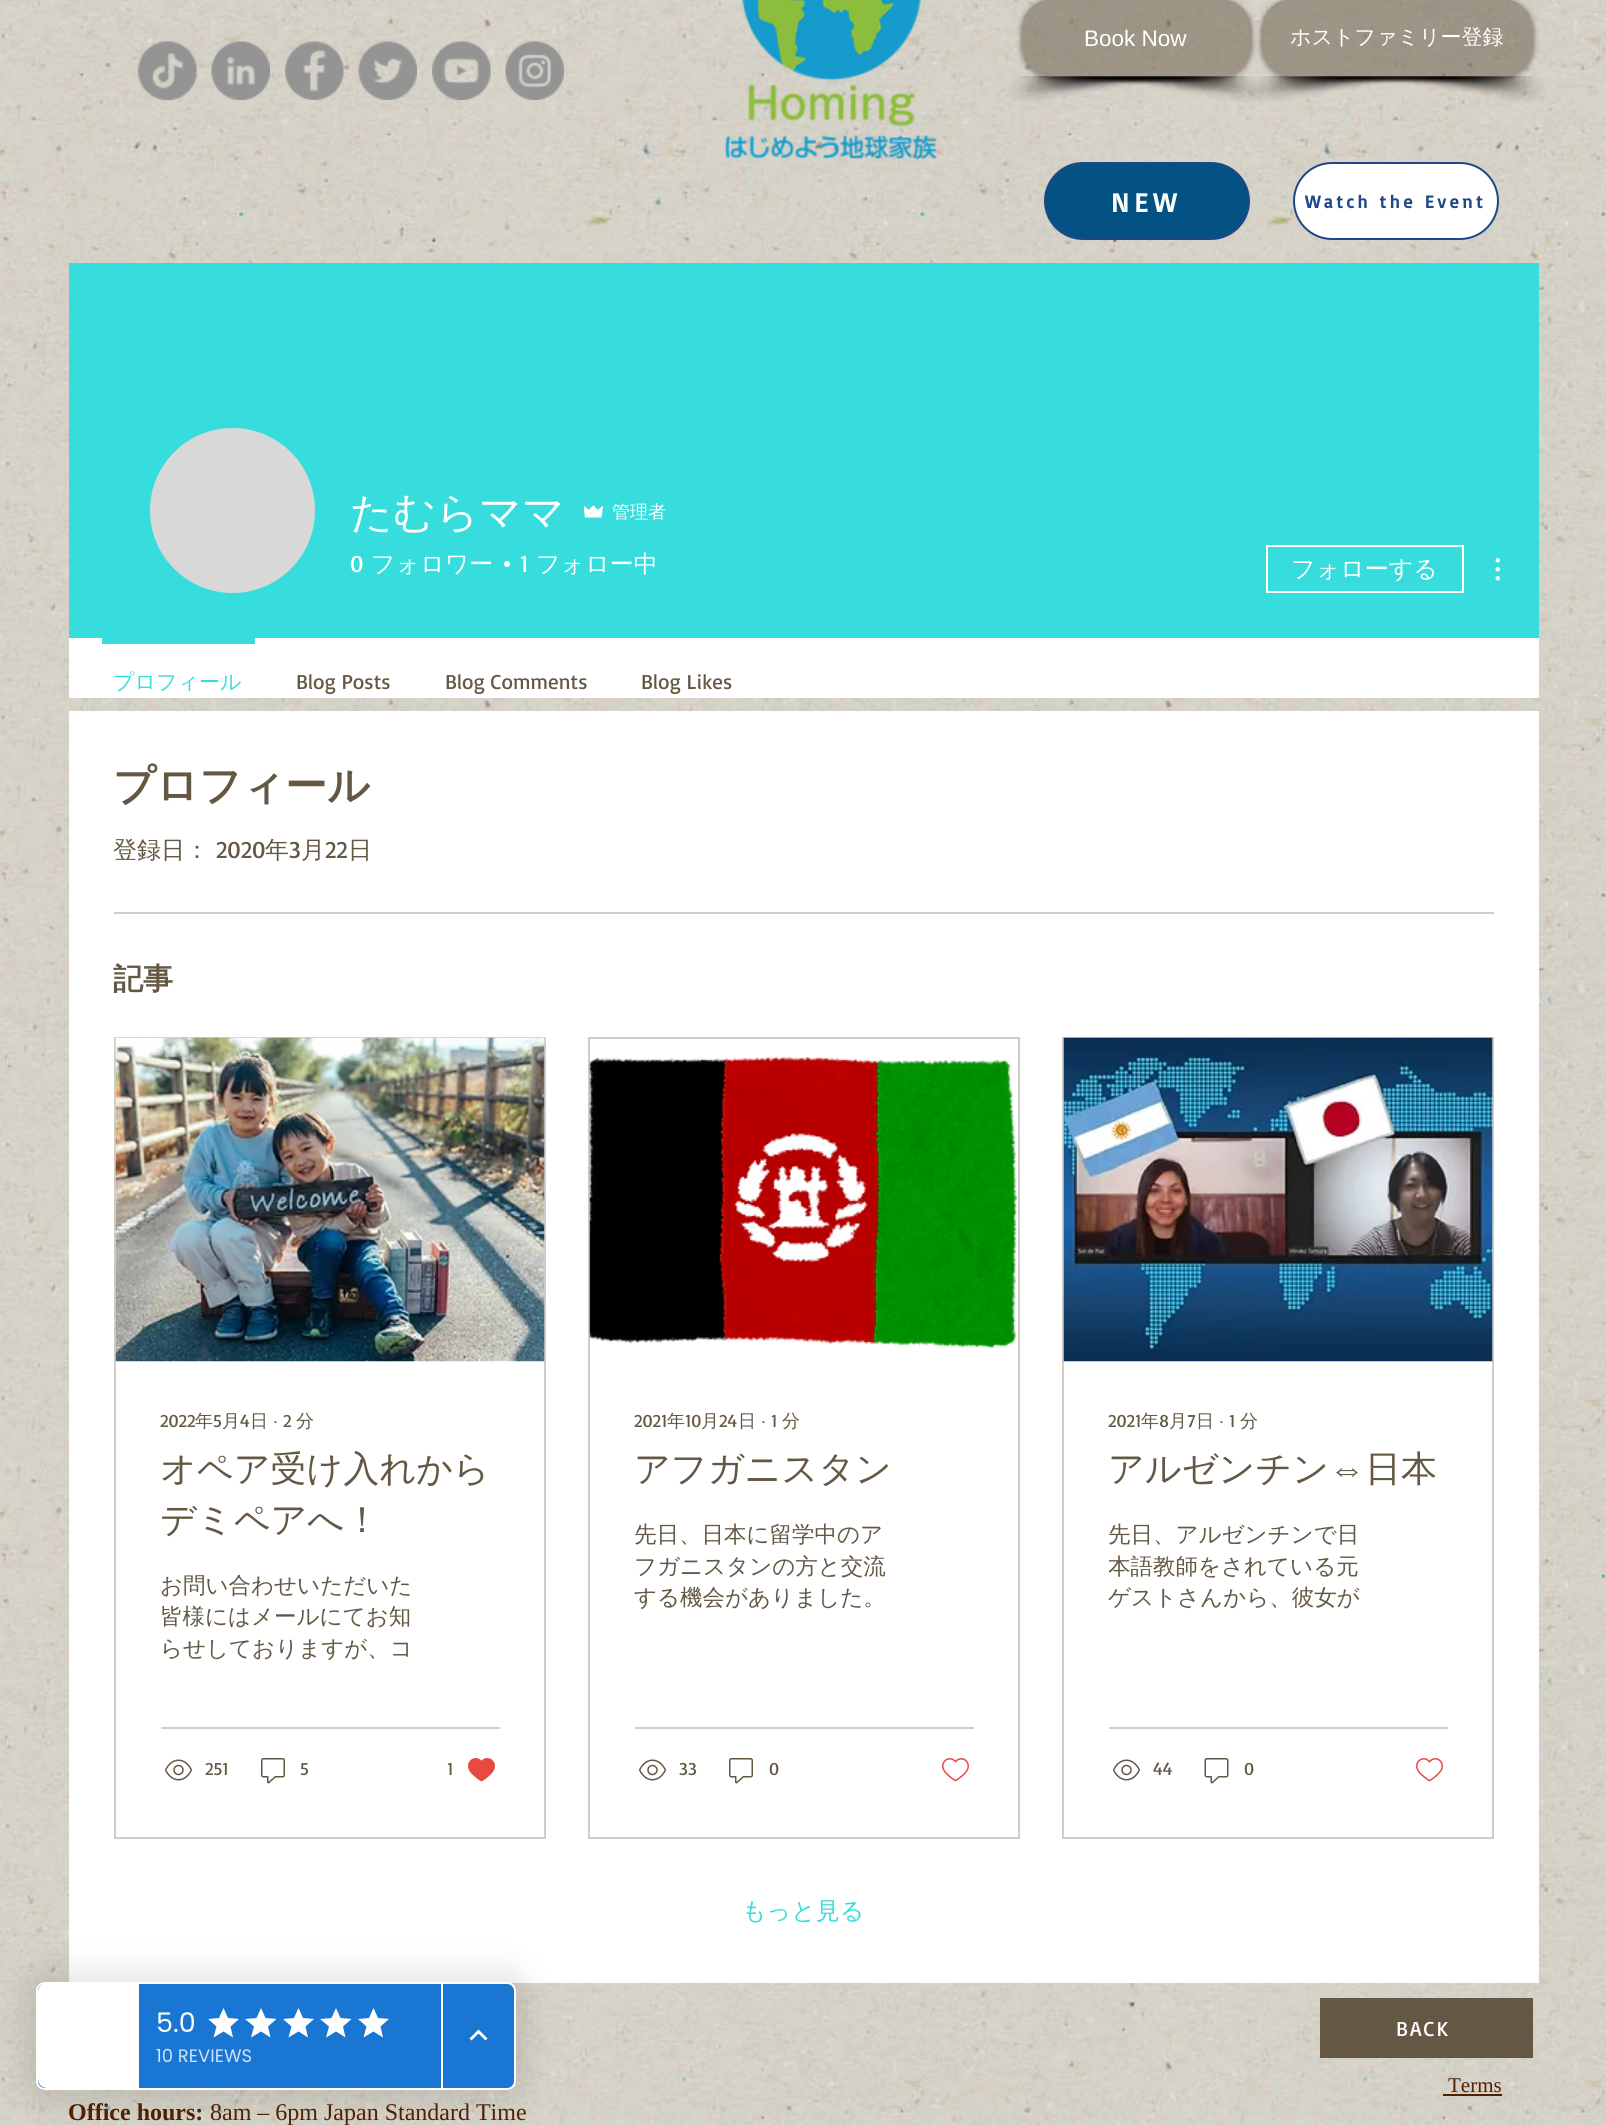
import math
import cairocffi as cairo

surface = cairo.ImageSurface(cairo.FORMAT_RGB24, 1606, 2125)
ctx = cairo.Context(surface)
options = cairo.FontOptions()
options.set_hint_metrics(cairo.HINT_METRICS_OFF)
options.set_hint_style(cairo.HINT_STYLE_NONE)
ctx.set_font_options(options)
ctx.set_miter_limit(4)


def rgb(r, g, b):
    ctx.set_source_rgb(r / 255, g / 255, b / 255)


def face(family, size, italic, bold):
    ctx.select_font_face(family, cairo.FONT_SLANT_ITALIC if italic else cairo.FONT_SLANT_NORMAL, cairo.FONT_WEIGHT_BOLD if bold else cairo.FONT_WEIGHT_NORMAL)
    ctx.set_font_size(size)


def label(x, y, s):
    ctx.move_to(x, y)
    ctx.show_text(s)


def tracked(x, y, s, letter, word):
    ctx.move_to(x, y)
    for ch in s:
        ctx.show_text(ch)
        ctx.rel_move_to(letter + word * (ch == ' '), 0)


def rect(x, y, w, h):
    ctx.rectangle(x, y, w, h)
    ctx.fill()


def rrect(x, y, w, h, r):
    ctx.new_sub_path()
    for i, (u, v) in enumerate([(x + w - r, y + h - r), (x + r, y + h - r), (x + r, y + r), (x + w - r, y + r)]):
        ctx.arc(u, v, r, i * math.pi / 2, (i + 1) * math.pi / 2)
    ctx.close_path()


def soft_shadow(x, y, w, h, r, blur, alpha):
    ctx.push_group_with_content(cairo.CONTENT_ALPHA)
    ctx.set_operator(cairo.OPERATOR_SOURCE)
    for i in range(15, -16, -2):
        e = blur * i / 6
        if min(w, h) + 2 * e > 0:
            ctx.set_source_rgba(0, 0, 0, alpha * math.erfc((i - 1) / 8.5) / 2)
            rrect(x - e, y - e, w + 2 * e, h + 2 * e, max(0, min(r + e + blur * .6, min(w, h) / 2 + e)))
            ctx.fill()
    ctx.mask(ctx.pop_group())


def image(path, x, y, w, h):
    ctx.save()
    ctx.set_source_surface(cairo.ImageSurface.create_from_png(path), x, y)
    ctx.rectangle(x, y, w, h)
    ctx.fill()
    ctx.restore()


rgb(255, 255, 255)
ctx.paint()
image('image0.png', 0, 0, 1606, 2125)
image('image1.png', 724, 0, 213, 159)
image('image2.png', 1009, 76, 230, 26)
image('image3.png', 1034, 76, 230, 26)
ctx.save()
ctx.set_fill_rule(cairo.FILL_RULE_EVEN_ODD)
ctx.new_path()
ctx.move_to(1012, 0)
ctx.line_to(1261, 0)
ctx.line_to(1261, 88)
ctx.line_to(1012, 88)
ctx.close_path()
ctx.move_to(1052, -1)
ctx.line_to(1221, -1)
ctx.curve_to(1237.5, -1, 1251, 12.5, 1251, 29)
ctx.line_to(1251, 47)
ctx.curve_to(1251, 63.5, 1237.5, 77, 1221, 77)
ctx.line_to(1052, 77)
ctx.curve_to(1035.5, 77, 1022, 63.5, 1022, 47)
ctx.line_to(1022, 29)
ctx.curve_to(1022, 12.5, 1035.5, -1, 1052, -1)
ctx.close_path()
ctx.clip()
rgb(0, 0, 0)
soft_shadow(1022, 0, 229, 78, 30, 3, 0.6)
ctx.restore()
ctx.set_source_rgba(0.392, 0.345, 0.267, 0.5)
rrect(1022, -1, 229, 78, 30)
ctx.fill()
face('Liberation Sans', 22.5, 0, 0)
rgb(255, 255, 255)
label(1084, 46, 'Book Now')
image('image4.png', 1249, 76, 230, 26)
image('image5.png', 1358, 76, 188, 26)
ctx.save()
ctx.set_fill_rule(cairo.FILL_RULE_EVEN_ODD)
ctx.new_path()
ctx.move_to(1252, 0)
ctx.line_to(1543, 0)
ctx.line_to(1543, 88)
ctx.line_to(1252, 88)
ctx.close_path()
ctx.move_to(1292, -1)
ctx.line_to(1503, -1)
ctx.curve_to(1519.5, -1, 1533, 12.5, 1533, 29)
ctx.line_to(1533, 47)
ctx.curve_to(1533, 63.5, 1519.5, 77, 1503, 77)
ctx.line_to(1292, 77)
ctx.curve_to(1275.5, 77, 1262, 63.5, 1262, 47)
ctx.line_to(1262, 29)
ctx.curve_to(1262, 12.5, 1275.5, -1, 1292, -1)
ctx.close_path()
ctx.clip()
rgb(0, 0, 0)
soft_shadow(1262, 0, 271, 78, 30, 3, 0.6)
ctx.restore()
ctx.set_source_rgba(0.392, 0.345, 0.267, 0.5)
rrect(1262, -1, 271, 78, 30)
ctx.fill()
face('WenQuanYi Zen Hei Medium', 21, 0, 0)
rgb(255, 255, 255)
label(1290, 44, 'ホストファミリー登録')
image('image6.png', 138, 41, 59, 59)
image('image7.png', 211, 41, 59, 59)
image('image8.png', 285, 41, 59, 59)
image('image9.png', 358, 41, 59, 59)
image('image10.png', 432, 41, 59, 59)
image('image11.png', 505, 41, 59, 59)
rgb(4, 81, 132)
rrect(1045, 163, 204, 76, 38)
ctx.fill_preserve()
rgb(30, 71, 135)
ctx.stroke()
face('Basic', 27, 0, 1)
rgb(255, 255, 255)
tracked(1111, 212, 'NEW', 5.5, 0)
rrect(1294, 163, 204, 76, 38)
ctx.fill_preserve()
rgb(30, 71, 135)
ctx.stroke()
ctx.save()
ctx.rectangle(1305, 191, 180, 22)
ctx.clip()
face('Basic', 18, 0, 1)
tracked(1305, 208, 'Watch the Event', 3.6, 0)
ctx.restore()
rgb(55, 221, 221)
rect(69, 263, 1470, 375)
rgb(216, 216, 216)
ctx.new_path()
ctx.arc(232.5, 510.5, 82.5, 0, 2 * math.pi)
ctx.fill()
face('WenQuanYi Zen Hei Medium', 42, 0, 0)
rgb(255, 255, 255)
label(350, 527, 'たむらママ')
image('image12.png', 584, 505, 19, 13)
face('WenQuanYi Zen Hei Medium', 18, 0, 0)
label(612, 518, '管理者')
face('Basic', 24, 0, 0)
label(350, 572, '0')
face('WenQuanYi Zen Hei Medium', 24, 0, 0)
label(371, 572, 'フォロワー')
ctx.new_path()
ctx.arc(507, 564, 3, 0, 2 * math.pi)
ctx.fill()
face('Basic', 24, 0, 0)
label(520, 572, '1')
face('WenQuanYi Zen Hei Medium', 24, 0, 0)
label(536, 572, 'フォロー中')
ctx.rectangle(1267, 546, 196, 46)
ctx.stroke()
label(1291, 577, 'フォローする')
image('image13.png', 1495, 558, 5, 23)
rect(69, 638, 1470, 60)
rgb(55, 221, 221)
rect(102, 638, 153, 6)
face('WenQuanYi Zen Hei Medium', 21, 0, 0)
label(113, 689, 'プロフィール')
face('Basic', 21, 0, 0)
rgb(100, 88, 68)
label(296, 689, 'Blog Posts')
label(445, 689, 'Blog Comments')
label(641, 689, 'Blog Likes')
rgb(255, 255, 255)
rect(69, 711, 1470, 1272)
face('WenQuanYi Zen Hei', 42, 0, 1)
rgb(100, 88, 68)
label(113, 800, 'プロフィール')
face('WenQuanYi Zen Hei Medium', 24, 0, 0)
label(113, 858, '登録日：')
face('Basic', 24, 0, 0)
label(216, 858, '2020')
face('WenQuanYi Zen Hei Medium', 24, 0, 0)
label(265, 858, '年')
face('Basic', 24, 0, 0)
label(289, 858, '3')
face('WenQuanYi Zen Hei Medium', 24, 0, 0)
label(301, 858, '月')
face('Basic', 24, 0, 0)
label(325, 858, '22')
face('WenQuanYi Zen Hei Medium', 24, 0, 0)
label(348, 858, '日')
rgb(209, 205, 199)
rect(114, 912, 1380, 2)
face('WenQuanYi Zen Hei', 30, 0, 1)
rgb(100, 88, 68)
label(113, 989, '記事')
ctx.rectangle(115, 1038, 430, 800)
rgb(209, 205, 199)
ctx.stroke()
image('image14.png', 115, 1037, 430, 325)
face('Basic', 18, 0, 0)
rgb(100, 88, 68)
label(160, 1427, '2022')
face('WenQuanYi Zen Hei Medium', 18, 0, 0)
label(195, 1427, '年')
face('Basic', 18, 0, 0)
label(213, 1427, '5')
face('WenQuanYi Zen Hei Medium', 18, 0, 0)
label(222, 1427, '月')
face('Basic', 18, 0, 0)
label(240, 1427, '4')
face('WenQuanYi Zen Hei Medium', 18, 0, 0)
label(250, 1427, '日')
face('Liberation Sans', 18, 0, 0)
label(273, 1427, '∙')
face('Basic', 18, 0, 0)
label(283, 1427, '2')
face('WenQuanYi Zen Hei Medium', 18, 0, 0)
label(296, 1427, '分')
face('WenQuanYi Zen Hei Medium', 36, 0, 0)
label(160, 1481, 'オペア受け入れから')
label(160, 1532, 'デミペアへ！')
face('WenQuanYi Zen Hei Medium', 22.5, 0, 0)
label(160, 1593, 'お問い合わせいただいた')
label(160, 1624, '皆様にはメールにてお知')
label(160, 1656, 'らせしておりますが、コ')
rgb(209, 205, 199)
rect(161, 1727, 339, 2)
image('image15.png', 165, 1759, 27, 22)
face('Basic', 18, 0, 0)
rgb(100, 88, 68)
label(205, 1775, '251')
image('image16.png', 261, 1758, 24, 26)
label(300, 1775, '5')
label(447, 1775, '1')
image('image17.png', 468, 1758, 27, 24)
ctx.rectangle(589, 1038, 430, 800)
rgb(209, 205, 199)
ctx.stroke()
image('image18.png', 589, 1056, 429, 293)
rgb(100, 88, 68)
label(634, 1427, '2021')
face('WenQuanYi Zen Hei Medium', 18, 0, 0)
label(667, 1427, '年')
face('Basic', 18, 0, 0)
label(685, 1427, '10')
face('WenQuanYi Zen Hei Medium', 18, 0, 0)
label(701, 1427, '月')
face('Basic', 18, 0, 0)
label(719, 1427, '24')
face('WenQuanYi Zen Hei Medium', 18, 0, 0)
label(738, 1427, '日')
face('Liberation Sans', 18, 0, 0)
label(761, 1427, '∙')
face('Basic', 18, 0, 0)
label(771, 1427, '1')
face('WenQuanYi Zen Hei Medium', 18, 0, 0)
label(782, 1427, '分')
face('WenQuanYi Zen Hei Medium', 36, 0, 0)
label(634, 1481, 'アフガニスタン')
face('WenQuanYi Zen Hei Medium', 22.5, 0, 0)
label(634, 1542, '先日、日本に留学中のア')
label(634, 1574, 'フガニスタンの方と交流')
label(634, 1605, 'する機会がありました。')
rgb(209, 205, 199)
rect(635, 1727, 339, 2)
image('image15.png', 639, 1759, 27, 22)
face('Basic', 18, 0, 0)
rgb(100, 88, 68)
label(679, 1775, '33')
image('image16.png', 729, 1758, 24, 26)
label(769, 1775, '0')
image('image19.png', 942, 1758, 27, 24)
ctx.rectangle(1063, 1038, 430, 800)
rgb(209, 205, 199)
ctx.stroke()
image('image20.png', 1063, 1037, 430, 325)
rgb(100, 88, 68)
label(1108, 1427, '2021')
face('WenQuanYi Zen Hei Medium', 18, 0, 0)
label(1141, 1427, '年')
face('Basic', 18, 0, 0)
label(1159, 1427, '8')
face('WenQuanYi Zen Hei Medium', 18, 0, 0)
label(1169, 1427, '月')
face('Basic', 18, 0, 0)
label(1187, 1427, '7')
face('WenQuanYi Zen Hei Medium', 18, 0, 0)
label(1196, 1427, '日')
face('Liberation Sans', 18, 0, 0)
label(1219, 1427, '∙')
face('Basic', 18, 0, 0)
label(1229, 1427, '1')
face('WenQuanYi Zen Hei Medium', 18, 0, 0)
label(1240, 1427, '分')
face('WenQuanYi Zen Hei Medium', 36, 0, 0)
label(1108, 1481, 'アルゼンチン')
face('Liberation Sans', 36, 0, 0)
label(1329, 1481, '⇔')
face('WenQuanYi Zen Hei Medium', 36, 0, 0)
label(1365, 1481, '日本')
face('WenQuanYi Zen Hei Medium', 22.5, 0, 0)
label(1108, 1542, '先日、アルゼンチンで日')
ctx.save()
ctx.rectangle(1109, 1518, 258, 95)
ctx.clip()
label(1108, 1574, '本語教師をされている元')
ctx.restore()
label(1108, 1605, 'ゲストさんから、彼女が')
rgb(209, 205, 199)
rect(1109, 1727, 339, 2)
image('image15.png', 1113, 1759, 27, 22)
face('Basic', 18, 0, 0)
rgb(100, 88, 68)
label(1153, 1775, '44')
image('image21.png', 1204, 1758, 25, 26)
label(1244, 1775, '0')
image('image19.png', 1416, 1758, 27, 24)
face('WenQuanYi Zen Hei Medium', 24, 0, 0)
rgb(55, 221, 221)
label(742, 1919, 'もっと見る')
rgb(100, 88, 68)
rect(1320, 1998, 213, 60)
face('Basic', 21, 0, 0)
rgb(255, 255, 255)
tracked(1396, 2036, 'BACK', 2, 0)
face('Liberation Serif', 21, 0, 0)
rgb(82, 34, 0)
label(1448, 2092, 'Terms')
rect(1443, 2094, 59, 2)
face('Liberation Serif', 24, 0, 1)
label(68, 2120, 'Office hours:')
face('Liberation Serif', 24, 0, 0)
label(210, 2120, '8am – 6pm Japan Standard Time')
rgb(0, 0, 0)
soft_shadow(27, 1973, 498, 126, 18, 18, 0.12)
rgb(25, 118, 210)
rrect(37, 1983, 478, 106, 8)
ctx.fill_preserve()
rgb(255, 255, 255)
ctx.stroke()
ctx.new_path()
ctx.move_to(47, 1983)
ctx.line_to(138, 1983)
ctx.line_to(138, 2088)
ctx.line_to(47, 2088)
ctx.curve_to(42, 2088, 38, 2084, 38, 2079)
ctx.line_to(38, 1992)
ctx.curve_to(38, 1987, 42, 1983, 47, 1983)
ctx.close_path()
ctx.fill()
rect(138, 1983, 1, 105)
rect(441, 1983, 2, 105)
face('Poppins', 27, 0, 0)
label(156, 2032, '5.0')
ctx.new_path()
ctx.move_to(223.5, 2031.5)
ctx.line_to(233, 2037.5)
ctx.line_to(230.5, 2026.5)
ctx.line_to(239, 2019)
ctx.line_to(228, 2018)
ctx.line_to(223.5, 2008)
ctx.line_to(219, 2018)
ctx.line_to(208, 2019)
ctx.line_to(216.5, 2026.5)
ctx.line_to(213.5, 2037.5)
ctx.close_path()
ctx.fill()
ctx.new_path()
ctx.move_to(261, 2031.5)
ctx.line_to(270.5, 2037.5)
ctx.line_to(268, 2026.5)
ctx.line_to(276.5, 2019)
ctx.line_to(265.5, 2018)
ctx.line_to(261, 2008)
ctx.line_to(256.5, 2018)
ctx.line_to(245, 2019)
ctx.line_to(254, 2026.5)
ctx.line_to(251, 2037.5)
ctx.close_path()
ctx.fill()
ctx.new_path()
ctx.move_to(298.5, 2031.5)
ctx.line_to(308, 2037.5)
ctx.line_to(305.5, 2026.5)
ctx.line_to(314, 2019)
ctx.line_to(303, 2018)
ctx.line_to(298.5, 2008)
ctx.line_to(294, 2018)
ctx.line_to(283, 2019)
ctx.line_to(291.5, 2026.5)
ctx.line_to(288.5, 2037.5)
ctx.close_path()
ctx.fill()
ctx.new_path()
ctx.move_to(336, 2031.5)
ctx.line_to(345.5, 2037.5)
ctx.line_to(343, 2026.5)
ctx.line_to(351.5, 2019)
ctx.line_to(340.5, 2018)
ctx.line_to(336, 2008)
ctx.line_to(331.5, 2018)
ctx.line_to(320, 2019)
ctx.line_to(329, 2026.5)
ctx.line_to(326, 2037.5)
ctx.close_path()
ctx.fill()
ctx.new_path()
ctx.move_to(373.5, 2031.5)
ctx.line_to(383, 2037.5)
ctx.line_to(380.5, 2026.5)
ctx.line_to(389, 2019)
ctx.line_to(378, 2018)
ctx.line_to(373.5, 2008)
ctx.line_to(369, 2018)
ctx.line_to(358, 2019)
ctx.line_to(366.5, 2026.5)
ctx.line_to(363.5, 2037.5)
ctx.close_path()
ctx.fill()
face('Poppins', 18, 0, 0)
rgb(207, 226, 246)
label(156, 2062, '10 REVIEWS')
rgb(255, 255, 255)
ctx.new_path()
ctx.move_to(471.5, 2040.5)
ctx.line_to(478.5, 2033.5)
ctx.line_to(485.5, 2040.5)
ctx.line_to(487.5, 2038.5)
ctx.line_to(478.5, 2029.5)
ctx.line_to(469.5, 2038.5)
ctx.close_path()
ctx.fill()
surface.write_to_png('render.png')
